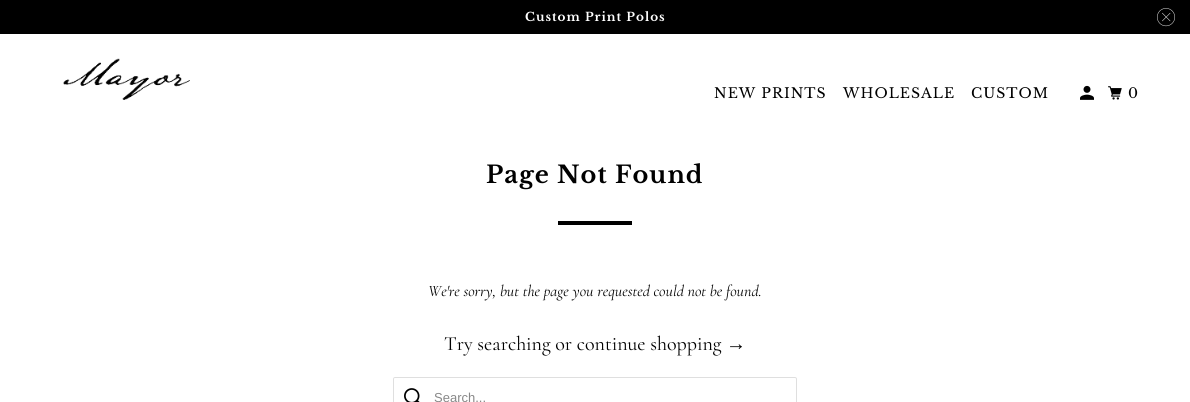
import math
import cairocffi as cairo

surface = cairo.ImageSurface(cairo.FORMAT_RGB24, 1190, 402)
ctx = cairo.Context(surface)
options = cairo.FontOptions()
options.set_hint_metrics(cairo.HINT_METRICS_OFF)
options.set_hint_style(cairo.HINT_STYLE_NONE)
ctx.set_font_options(options)
ctx.set_miter_limit(4)


def rgb(r, g, b):
    ctx.set_source_rgb(r / 255, g / 255, b / 255)


def face(family, size, italic, bold):
    ctx.select_font_face(family, cairo.FONT_SLANT_ITALIC if italic else cairo.FONT_SLANT_NORMAL, cairo.FONT_WEIGHT_BOLD if bold else cairo.FONT_WEIGHT_NORMAL)
    ctx.set_font_size(size)


def label(x, y, s):
    ctx.move_to(x, y)
    ctx.show_text(s)


def tracked(x, y, s, letter, word):
    ctx.move_to(x, y)
    for ch in s:
        ctx.show_text(ch)
        ctx.rel_move_to(letter + word * (ch == ' '), 0)


def rect(x, y, w, h):
    ctx.rectangle(x, y, w, h)
    ctx.fill()


def rrect(x, y, w, h, r):
    ctx.new_sub_path()
    for i, (u, v) in enumerate([(x + w - r, y + h - r), (x + r, y + h - r), (x + r, y + r), (x + w - r, y + r)]):
        ctx.arc(u, v, r, i * math.pi / 2, (i + 1) * math.pi / 2)
    ctx.close_path()


def image(path, x, y, w, h):
    ctx.save()
    ctx.set_source_surface(cairo.ImageSurface.create_from_png(path), x, y)
    ctx.rectangle(x, y, w, h)
    ctx.fill()
    ctx.restore()


rgb(255, 255, 255)
ctx.paint()
rgb(0, 0, 0)
rect(0, 0, 1190, 34)
face('Libre Baskerville', 12, 0, 1)
rgb(255, 255, 255)
tracked(525, 21, 'Custom Print Polos', 1, 0)
image('image0.png', 1157, 8, 18, 19)
image('image1.png', 63, 58, 127, 42)
face('Libre Baskerville', 14, 0, 0)
rgb(0, 0, 0)
tracked(714, 98, 'NEW PRINTS', 1, 0)
tracked(843, 98, 'WHOLESALE', 1, 0)
tracked(971, 98, 'CUSTOM', 1, 0)
image('image2.png', 1080, 85, 14, 15)
image('image3.png', 1108, 86, 14, 14)
tracked(1128, 98, '0', 1, 0)
face('Libre Baskerville', 24, 0, 1)
tracked(486, 183, 'Page Not Found', 1, 0)
rect(558, 221, 74, 4)
face('Cormorant', 16, 1, 0)
label(428, 296, 'We\'re sorry, but the page you requested could not be found.')
face('Cormorant Light', 20, 0, 0)
label(444, 350, 'Try searching or continue shopping')
face('Liberation Serif', 20, 0, 0)
label(726, 350, '→')
rrect(393.5, 377.5, 403, 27, 1.5)
rgb(223, 223, 223)
ctx.set_line_width(1)
ctx.stroke()
image('image4.png', 404, 388, 16, 14)
face('Liberation Sans', 13, 0, 0)
rgb(136, 136, 136)
label(434, 402, 'Search...')
surface.write_to_png('render.png')
